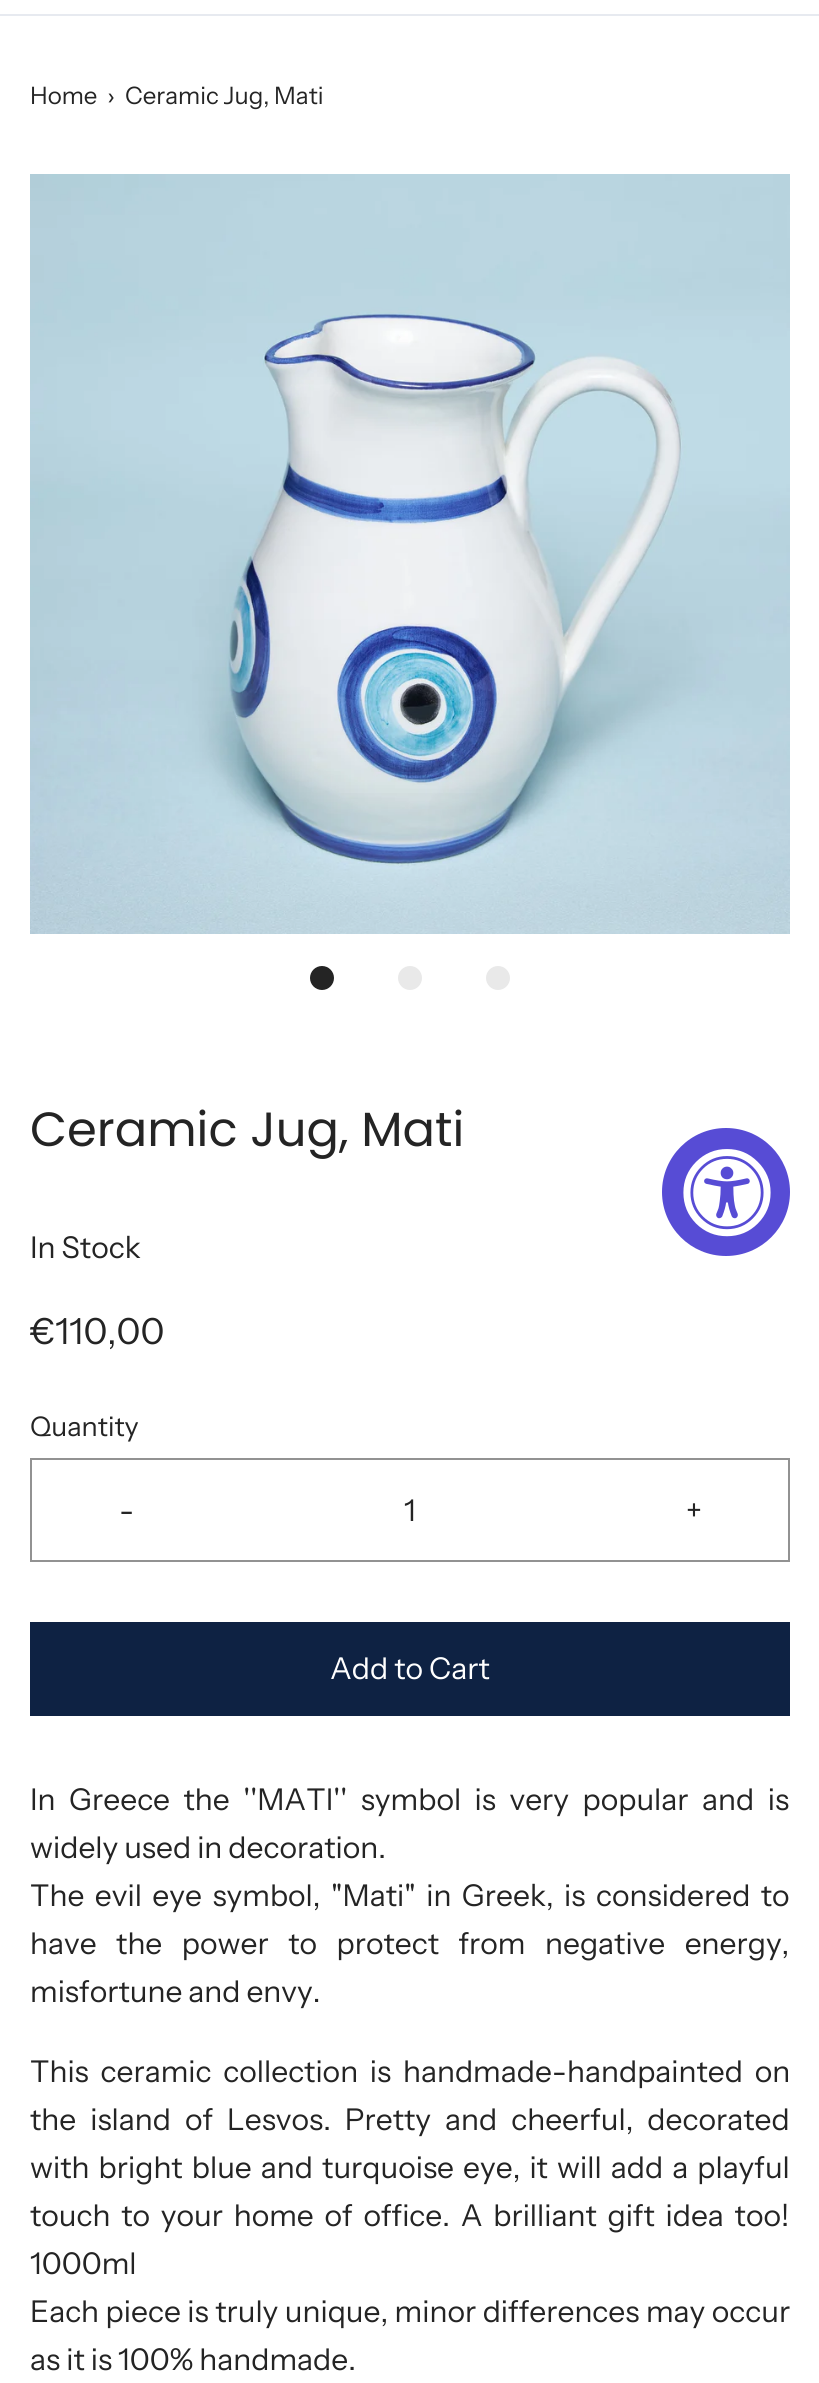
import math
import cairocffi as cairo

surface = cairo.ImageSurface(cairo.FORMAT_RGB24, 819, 2383)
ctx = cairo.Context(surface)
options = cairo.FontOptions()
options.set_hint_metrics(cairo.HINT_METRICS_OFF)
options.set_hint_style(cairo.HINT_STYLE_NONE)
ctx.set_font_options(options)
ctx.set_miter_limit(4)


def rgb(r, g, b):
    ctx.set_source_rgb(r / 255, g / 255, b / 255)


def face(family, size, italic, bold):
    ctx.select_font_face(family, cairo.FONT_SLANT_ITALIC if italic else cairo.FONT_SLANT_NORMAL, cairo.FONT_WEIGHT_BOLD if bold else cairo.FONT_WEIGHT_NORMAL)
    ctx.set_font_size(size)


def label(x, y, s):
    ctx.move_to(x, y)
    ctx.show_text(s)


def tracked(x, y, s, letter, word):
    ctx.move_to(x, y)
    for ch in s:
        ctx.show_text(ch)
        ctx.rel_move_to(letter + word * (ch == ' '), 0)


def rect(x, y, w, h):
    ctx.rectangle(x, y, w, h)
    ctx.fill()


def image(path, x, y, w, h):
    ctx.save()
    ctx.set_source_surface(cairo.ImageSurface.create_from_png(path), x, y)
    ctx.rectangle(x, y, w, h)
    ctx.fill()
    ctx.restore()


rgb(255, 255, 255)
ctx.paint()
rgb(231, 234, 240)
rect(0, 14, 819, 2)
face('Instrument Sans', 24, 0, 0)
rgb(36, 36, 36)
label(30, 104, 'Home')
label(107, 104, '›')
label(125, 104, 'Ceramic Jug, Mati')
image('image0.png', 30, 174, 760, 760)
ctx.arc(322, 978, 12, 0, 2 * math.pi)
ctx.fill()
rgb(233, 233, 233)
ctx.arc(410, 978, 12, 0, 2 * math.pi)
ctx.fill()
ctx.arc(498, 978, 12, 0, 2 * math.pi)
ctx.fill()
face('Poppins', 48, 0, 0)
rgb(36, 36, 36)
label(30, 1146, 'Ceramic Jug, Mati')
face('Instrument Sans', 30, 0, 0)
label(30, 1258, 'In Stock')
face('Instrument Sans', 36, 0, 0)
label(30, 1344, '€110,00')
face('Instrument Sans', 27, 0, 0)
label(30, 1436, 'Quantity')
ctx.rectangle(31, 1459, 758, 102)
rgb(146, 146, 146)
ctx.stroke()
face('Instrument Sans', 30, 0, 0)
rgb(36, 36, 36)
label(119, 1521, '-')
label(404, 1521, '1')
label(686, 1521, '+')
rgb(14, 34, 67)
rect(30, 1622, 760, 94)
rgb(255, 255, 255)
label(330, 1679, 'Add to Cart')
rgb(36, 36, 36)
tracked(30, 1810, 'In Greece the \'\'MATI\'\' symbol is very popular and is', 0, 7.5)
label(30, 1858, 'widely used in decoration.')
tracked(30, 1906, 'The evil eye symbol, "Mati" in Greek, is considered to', 0, 4.5)
tracked(30, 1954, 'have the power to protect from negative energy,', 0, 13.5)
label(30, 2002, 'misfortune and envy.')
tracked(30, 2082, 'This ceramic collection is handmade-handpainted on', 0, 5.75)
tracked(30, 2130, 'the island of Lesvos. Pretty and cheerful, decorated', 0, 8)
tracked(30, 2178, 'with bright blue and turquoise eye, it will add a playful', 0, 3.1)
tracked(30, 2226, 'touch to your home of office. A brilliant gift idea too!', 0, 4.75)
label(30, 2274, '1000ml')
tracked(30, 2322, 'Each piece is truly unique, minor differences may occur', 0, 0.5)
label(30, 2370, 'as it is 100% handmade.')
rgb(87, 76, 213)
ctx.new_path()
ctx.arc(726, 1192, 64, 0, 2 * math.pi)
ctx.fill()
image('image1.png', 683, 1149, 88, 88)
surface.write_to_png('render.png')
